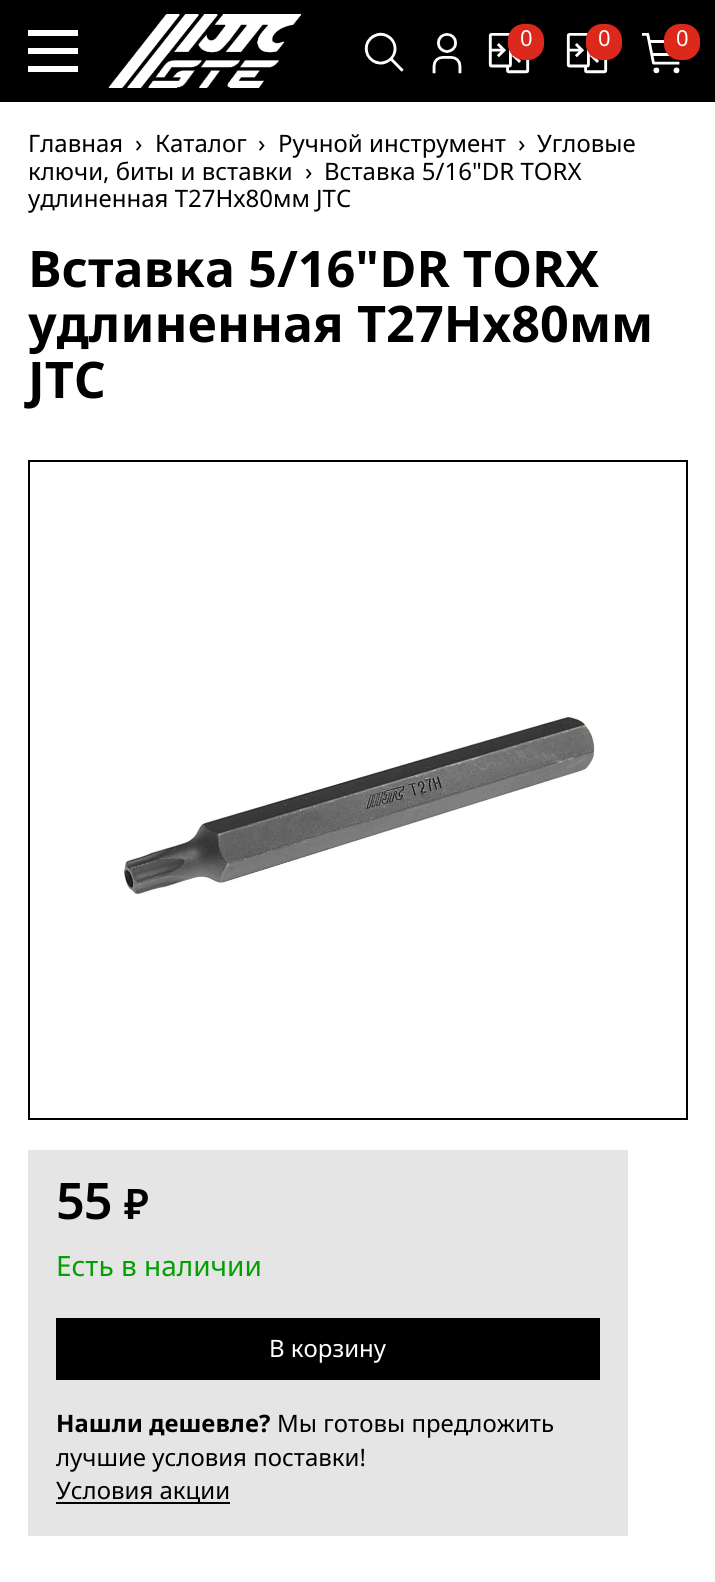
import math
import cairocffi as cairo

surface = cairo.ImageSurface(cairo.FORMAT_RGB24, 715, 1582)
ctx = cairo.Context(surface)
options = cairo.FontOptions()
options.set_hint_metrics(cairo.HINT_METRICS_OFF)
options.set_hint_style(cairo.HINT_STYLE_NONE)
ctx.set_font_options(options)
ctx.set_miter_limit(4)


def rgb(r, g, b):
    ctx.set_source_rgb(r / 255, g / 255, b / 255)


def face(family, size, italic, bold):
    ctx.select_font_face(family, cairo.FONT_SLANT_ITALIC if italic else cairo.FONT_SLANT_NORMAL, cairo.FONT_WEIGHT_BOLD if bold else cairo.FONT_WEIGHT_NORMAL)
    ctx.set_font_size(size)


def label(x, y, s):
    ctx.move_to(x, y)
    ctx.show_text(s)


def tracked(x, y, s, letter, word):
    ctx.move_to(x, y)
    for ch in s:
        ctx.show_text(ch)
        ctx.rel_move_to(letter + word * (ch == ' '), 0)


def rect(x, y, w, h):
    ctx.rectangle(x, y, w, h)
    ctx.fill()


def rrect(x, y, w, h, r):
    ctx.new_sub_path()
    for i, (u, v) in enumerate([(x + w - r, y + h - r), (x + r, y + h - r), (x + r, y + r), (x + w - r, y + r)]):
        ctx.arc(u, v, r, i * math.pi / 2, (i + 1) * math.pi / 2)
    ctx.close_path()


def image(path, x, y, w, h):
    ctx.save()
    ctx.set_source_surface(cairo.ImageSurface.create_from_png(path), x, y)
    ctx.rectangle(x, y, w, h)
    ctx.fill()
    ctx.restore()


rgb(255, 255, 255)
ctx.paint()
rgb(0, 0, 0)
rect(0, 0, 715, 102)
rgb(255, 255, 255)
rect(28, 30, 50, 6)
rect(28, 48, 50, 6)
rect(28, 66, 50, 6)
image('image0.png', 108, 14, 194, 74)
image('image1.png', 364, 32, 40, 40)
image('image2.png', 432, 33, 30, 41)
image('image3.png', 488, 33, 42, 41)
rgb(221, 41, 27)
rrect(508, 24, 36, 36, 16)
ctx.fill()
face('Noto Sans', 22, 0, 0)
rgb(255, 255, 255)
label(520, 46, '0')
image('image3.png', 566, 33, 42, 41)
rgb(221, 41, 27)
rrect(586, 24, 36, 36, 16)
ctx.fill()
rgb(255, 255, 255)
label(598, 46, '0')
image('image4.png', 642, 32, 38, 42)
rgb(221, 41, 27)
rrect(664, 24, 36, 36, 16)
ctx.fill()
rgb(255, 255, 255)
label(676, 46, '0')
face('Noto Sans', 24, 0, 0)
rgb(0, 0, 0)
label(28, 152, 'Главная')
label(135, 152, '›')
label(155, 152, 'Каталог')
label(258, 152, '›')
label(278, 152, 'Ручной инструмент')
label(518, 152, '›')
label(537, 152, 'Угловые')
label(28, 180, 'ключи, биты и вставки')
label(305, 180, '›')
label(324, 180, 'Вставка 5/16"DR TORX')
label(28, 207, 'удлиненная Т27Hх80мм JTC')
face('Noto Sans', 50.4, 0, 1)
label(28, 287, 'Вставка 5/16"DR TORX')
label(28, 342, 'удлиненная Т27Hх80мм')
label(28, 398, 'JTC')
ctx.rectangle(29, 461, 658, 658)
ctx.stroke()
image('image5.png', 122, 717, 473, 178)
rgb(229, 229, 229)
rect(28, 1150, 600, 386)
face('Noto Sans SemiBold', 50.4, 0, 0)
rgb(0, 0, 0)
tracked(56, 1219, '55', -1, 0)
face('Noto Sans SemiBold', 42, 0, 0)
tracked(124, 1219, '₽', -1, 0)
face('Noto Sans', 28, 0, 0)
rgb(0, 160, 0)
label(56, 1276, 'Есть в наличии')
rgb(0, 0, 0)
rect(56, 1318, 544, 62)
face('Noto Sans', 24, 0, 0)
rgb(255, 255, 255)
label(269, 1357, 'В корзину')
face('Noto Sans', 24, 0, 1)
rgb(0, 0, 0)
label(56, 1432, 'Нашли дешевле?')
face('Noto Sans', 24, 0, 0)
label(277, 1432, 'Мы готовы предложить')
label(56, 1466, 'лучшие условия поставки!')
rect(56, 1502, 174, 2)
label(56, 1499, 'Условия акции')
surface.write_to_png('render.png')
